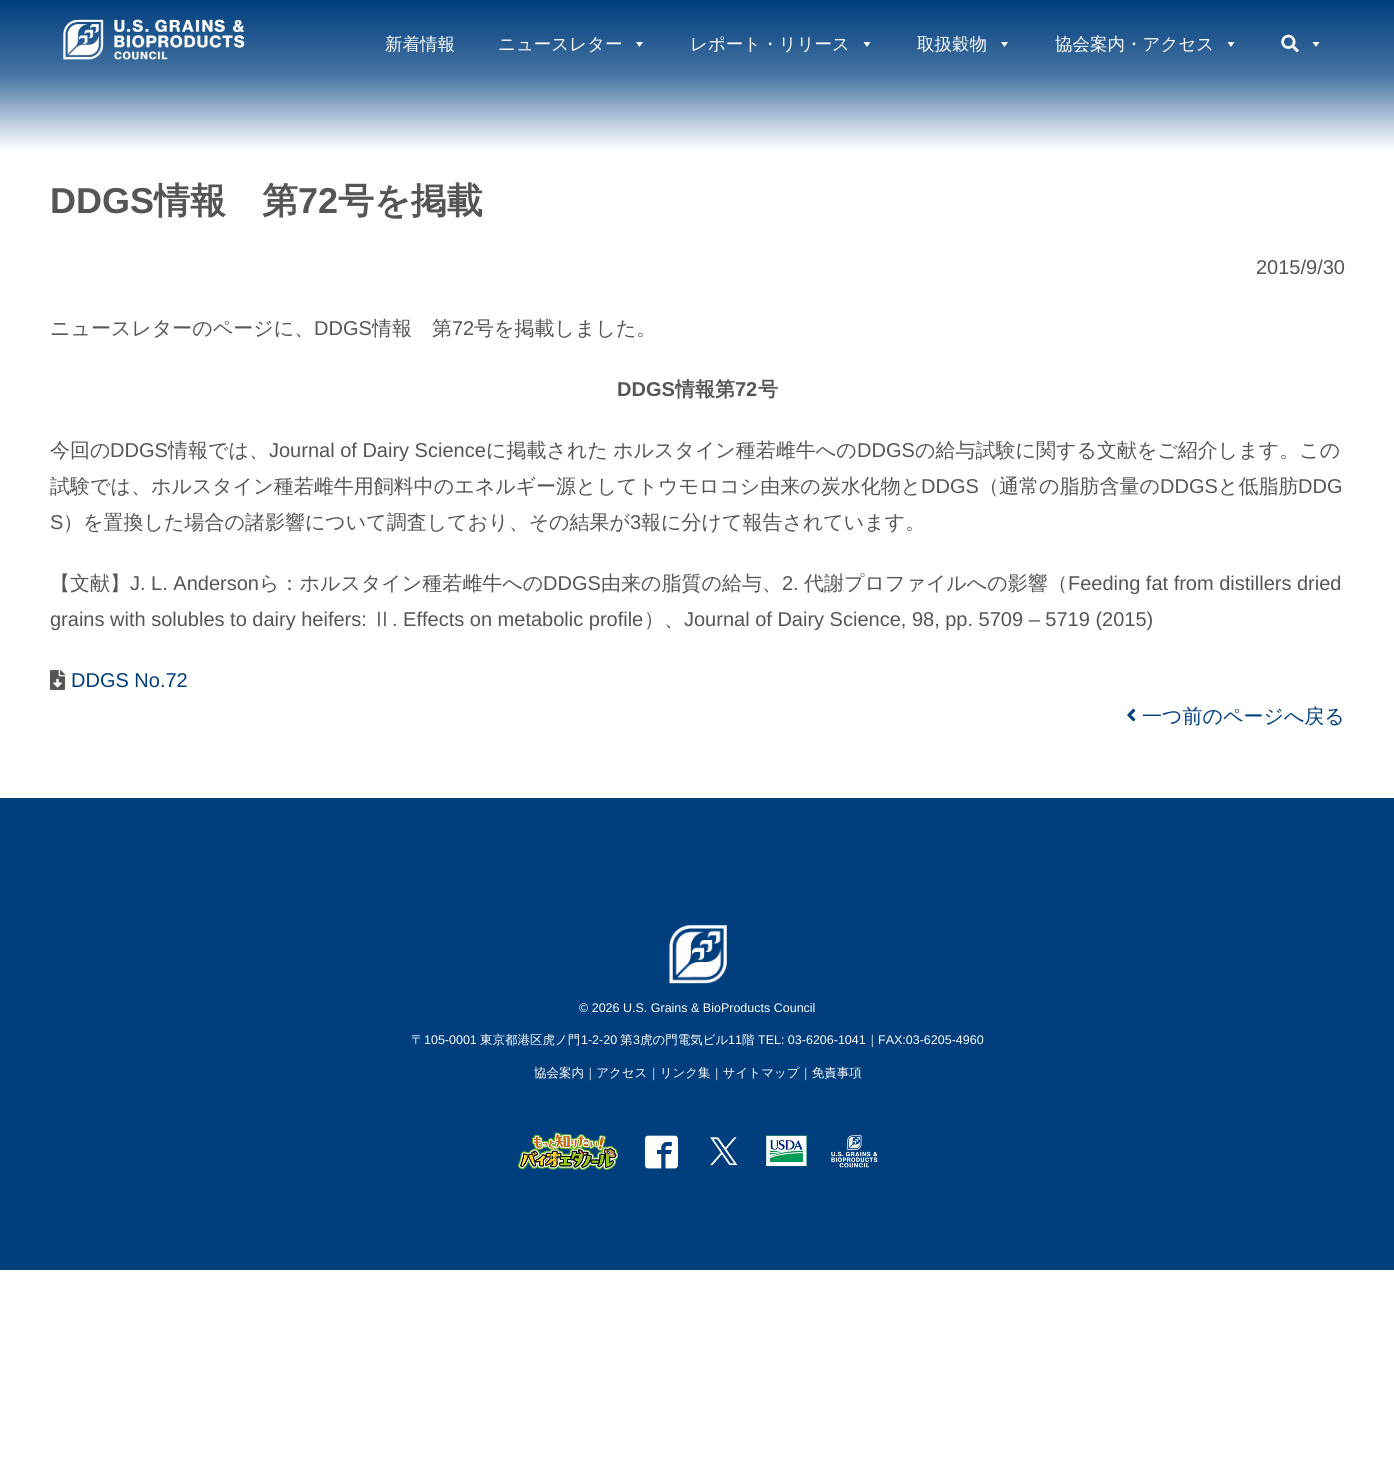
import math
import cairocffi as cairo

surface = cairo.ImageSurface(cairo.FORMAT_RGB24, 1394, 1468)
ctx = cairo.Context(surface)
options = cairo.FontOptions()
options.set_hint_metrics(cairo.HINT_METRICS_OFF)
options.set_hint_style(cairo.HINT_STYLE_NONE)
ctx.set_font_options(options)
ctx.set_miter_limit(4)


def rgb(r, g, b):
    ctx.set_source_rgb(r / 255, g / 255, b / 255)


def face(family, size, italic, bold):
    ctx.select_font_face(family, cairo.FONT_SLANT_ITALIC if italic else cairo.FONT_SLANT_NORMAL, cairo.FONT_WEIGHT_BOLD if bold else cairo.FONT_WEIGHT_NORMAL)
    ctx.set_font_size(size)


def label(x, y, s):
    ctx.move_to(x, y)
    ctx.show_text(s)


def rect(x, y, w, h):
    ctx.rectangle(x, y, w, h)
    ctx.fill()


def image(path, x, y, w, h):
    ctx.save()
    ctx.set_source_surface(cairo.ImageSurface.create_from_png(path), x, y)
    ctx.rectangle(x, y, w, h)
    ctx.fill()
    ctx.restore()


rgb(255, 255, 255)
ctx.paint()
gradient = cairo.LinearGradient(698, 0, 698, 150)
gradient.add_color_stop_rgba(0, 0, 0.243, 0.494, 1)
gradient.add_color_stop_rgba(0.5, 0.275, 0.451, 0.635, 1)
gradient.add_color_stop_rgba(1, 1, 1, 1, 1)
ctx.set_source(gradient)
rect(0, 0, 1394, 149)
image('image0.png', 63, 19, 182, 41)
face('WenQuanYi Zen Hei Medium', 17.5, 0, 0)
rgb(255, 255, 255)
label(385, 50, '新着情報')
label(498, 50, 'ニュースレター')
ctx.new_path()
ctx.move_to(643, 42)
ctx.line_to(639.5, 47)
ctx.line_to(636, 42)
ctx.close_path()
ctx.fill()
label(690, 50, 'レポート・リリース')
ctx.new_path()
ctx.move_to(870.5, 42)
ctx.line_to(867, 47)
ctx.line_to(863.5, 42)
ctx.close_path()
ctx.fill()
label(917, 50, '取扱穀物')
ctx.new_path()
ctx.move_to(1008, 42)
ctx.line_to(1004.5, 47)
ctx.line_to(1001, 42)
ctx.close_path()
ctx.fill()
label(1055, 50, '協会案内・アクセス')
ctx.new_path()
ctx.move_to(1234.5, 42)
ctx.line_to(1231, 47)
ctx.line_to(1227.5, 42)
ctx.close_path()
ctx.fill()
image('image1.png', 1281, 34, 18, 19)
ctx.new_path()
ctx.move_to(1319.5, 42)
ctx.line_to(1316, 47)
ctx.line_to(1312.5, 42)
ctx.close_path()
ctx.fill()
face('Liberation Sans', 36, 0, 1)
rgb(85, 85, 85)
label(50, 213, 'DDGS')
face('WenQuanYi Zen Hei', 36, 0, 1)
label(154, 213, '情報　第')
face('Liberation Sans', 36, 0, 1)
label(298, 213, '72')
face('WenQuanYi Zen Hei', 36, 0, 1)
label(338, 213, '号を掲載')
face('Liberation Sans', 20, 0, 0)
label(1256, 274, '2015/9/30')
face('WenQuanYi Zen Hei Medium', 20, 0, 0)
label(50, 335, 'ニュースレターのページに、')
face('Liberation Sans', 20, 0, 0)
label(314, 335, 'DDGS')
face('WenQuanYi Zen Hei Medium', 20, 0, 0)
label(372, 335, '情報　第')
face('Liberation Sans', 20, 0, 0)
label(452, 335, '72')
face('WenQuanYi Zen Hei Medium', 20, 0, 0)
label(474, 335, '号を掲載しました。')
face('Liberation Sans', 20, 0, 1)
label(617, 396, 'DDGS')
face('WenQuanYi Zen Hei', 20, 0, 1)
label(675, 396, '情報第')
face('Liberation Sans', 20, 0, 1)
label(735, 396, '72')
face('WenQuanYi Zen Hei', 20, 0, 1)
label(758, 396, '号')
face('WenQuanYi Zen Hei Medium', 20, 0, 0)
label(50, 457, '今回の')
face('Liberation Sans', 20, 0, 0)
label(110, 457, 'DDGS')
face('WenQuanYi Zen Hei Medium', 20, 0, 0)
label(168, 457, '情報では、')
face('Liberation Sans', 20, 0, 0)
label(269, 457, 'Journal of Dairy Science')
face('WenQuanYi Zen Hei Medium', 20, 0, 0)
label(486, 457, 'に掲載された')
label(613, 457, 'ホルスタイン種若雌牛への')
face('Liberation Sans', 20, 0, 0)
label(857, 457, 'DDGS')
face('WenQuanYi Zen Hei Medium', 20, 0, 0)
label(915, 457, 'の給与試験に関する文献をご紹介します。この')
label(50, 493, '試験では、ホルスタイン種若雌牛用飼料中のエネルギー源としてトウモロコシ由来の炭水化物と')
face('Liberation Sans', 20, 0, 0)
label(921, 493, 'DDGS')
face('WenQuanYi Zen Hei Medium', 20, 0, 0)
label(979, 493, '（通常の脂肪含量の')
face('Liberation Sans', 20, 0, 0)
label(1160, 493, 'DDGS')
face('WenQuanYi Zen Hei Medium', 20, 0, 0)
label(1218, 493, 'と低脂肪')
face('Liberation Sans', 20, 0, 0)
label(1298, 493, 'DDG')
label(50, 529, 'S')
face('WenQuanYi Zen Hei Medium', 20, 0, 0)
label(63, 529, '）を置換した場合の諸影響について調査しており、その結果が')
face('Liberation Sans', 20, 0, 0)
label(630, 529, '3')
face('WenQuanYi Zen Hei Medium', 20, 0, 0)
label(641, 529, '報に分けて報告されています。')
label(50, 590, '【文献】')
face('Liberation Sans', 20, 0, 0)
label(130, 590, 'J. L. Anderson')
face('WenQuanYi Zen Hei Medium', 20, 0, 0)
label(259, 590, 'ら：ホルスタイン種若雌牛への')
face('Liberation Sans', 20, 0, 0)
label(543, 590, 'DDGS')
face('WenQuanYi Zen Hei Medium', 20, 0, 0)
label(601, 590, '由来の脂質の給与、')
face('Liberation Sans', 20, 0, 0)
label(782, 590, '2.')
face('WenQuanYi Zen Hei Medium', 20, 0, 0)
label(804, 590, '代謝プロファイルへの影響（')
face('Liberation Sans', 20, 0, 0)
label(1068, 590, 'Feeding fat from distillers dried')
label(50, 626, 'grains with solubles to dairy heifers:')
face('WenQuanYi Zen Hei Medium', 20, 0, 0)
label(372, 626, 'Ⅱ')
face('Liberation Sans', 20, 0, 0)
label(392, 626, '. Effects on metabolic profile')
face('WenQuanYi Zen Hei Medium', 20, 0, 0)
label(644, 626, '）、')
face('Liberation Sans', 20, 0, 0)
label(684, 626, 'Journal of Dairy Science, 98, pp. 5709 – 5719 (2015)')
image('image2.png', 50, 670, 15, 20)
rgb(0, 62, 126)
label(71, 687, 'DDGS No.72')
image('image3.png', 1127, 708, 9, 14)
face('WenQuanYi Zen Hei Medium', 20, 0, 0)
label(1142, 723, '一つ前のページへ戻る')
rect(0, 798, 1394, 472)
image('image4.png', 669, 925, 58, 59)
face('Liberation Sans', 12.5, 0, 0)
rgb(255, 255, 255)
label(579, 1012, '© 2026 U.S. Grains & BioProducts Council')
face('WenQuanYi Zen Hei Medium', 12.5, 0, 0)
label(411, 1044, '〒')
face('Liberation Sans', 12.5, 0, 0)
label(424, 1044, '105-0001')
face('WenQuanYi Zen Hei Medium', 12.5, 0, 0)
label(480, 1044, '東京都港区虎ノ門')
face('Liberation Sans', 12.5, 0, 0)
label(581, 1044, '1-2-20')
face('WenQuanYi Zen Hei Medium', 12.5, 0, 0)
label(620, 1044, '第')
face('Liberation Sans', 12.5, 0, 0)
label(633, 1044, '3')
face('WenQuanYi Zen Hei Medium', 12.5, 0, 0)
label(640, 1044, '虎の門電気ビル')
face('Liberation Sans', 12.5, 0, 0)
label(728, 1044, '11')
face('WenQuanYi Zen Hei Medium', 12.5, 0, 0)
label(742, 1044, '階')
face('Liberation Sans', 12.5, 0, 0)
label(758, 1044, 'TEL: 03-6206-1041')
face('WenQuanYi Zen Hei Medium', 12.5, 0, 0)
label(866, 1044, '｜')
face('Liberation Sans', 12.5, 0, 0)
label(878, 1044, 'FAX:03-6205-4960')
face('WenQuanYi Zen Hei Medium', 12.5, 0, 0)
label(534, 1077, '協会案内｜アクセス｜リンク集｜サイトマップ｜免責事項')
image('image5.png', 518, 1132, 100, 38)
image('image6.png', 645, 1135, 33, 34)
image('image7.png', 710, 1137, 28, 29)
image('image8.png', 765, 1135, 42, 32)
image('image9.png', 831, 1135, 47, 33)
surface.write_to_png('render.png')
